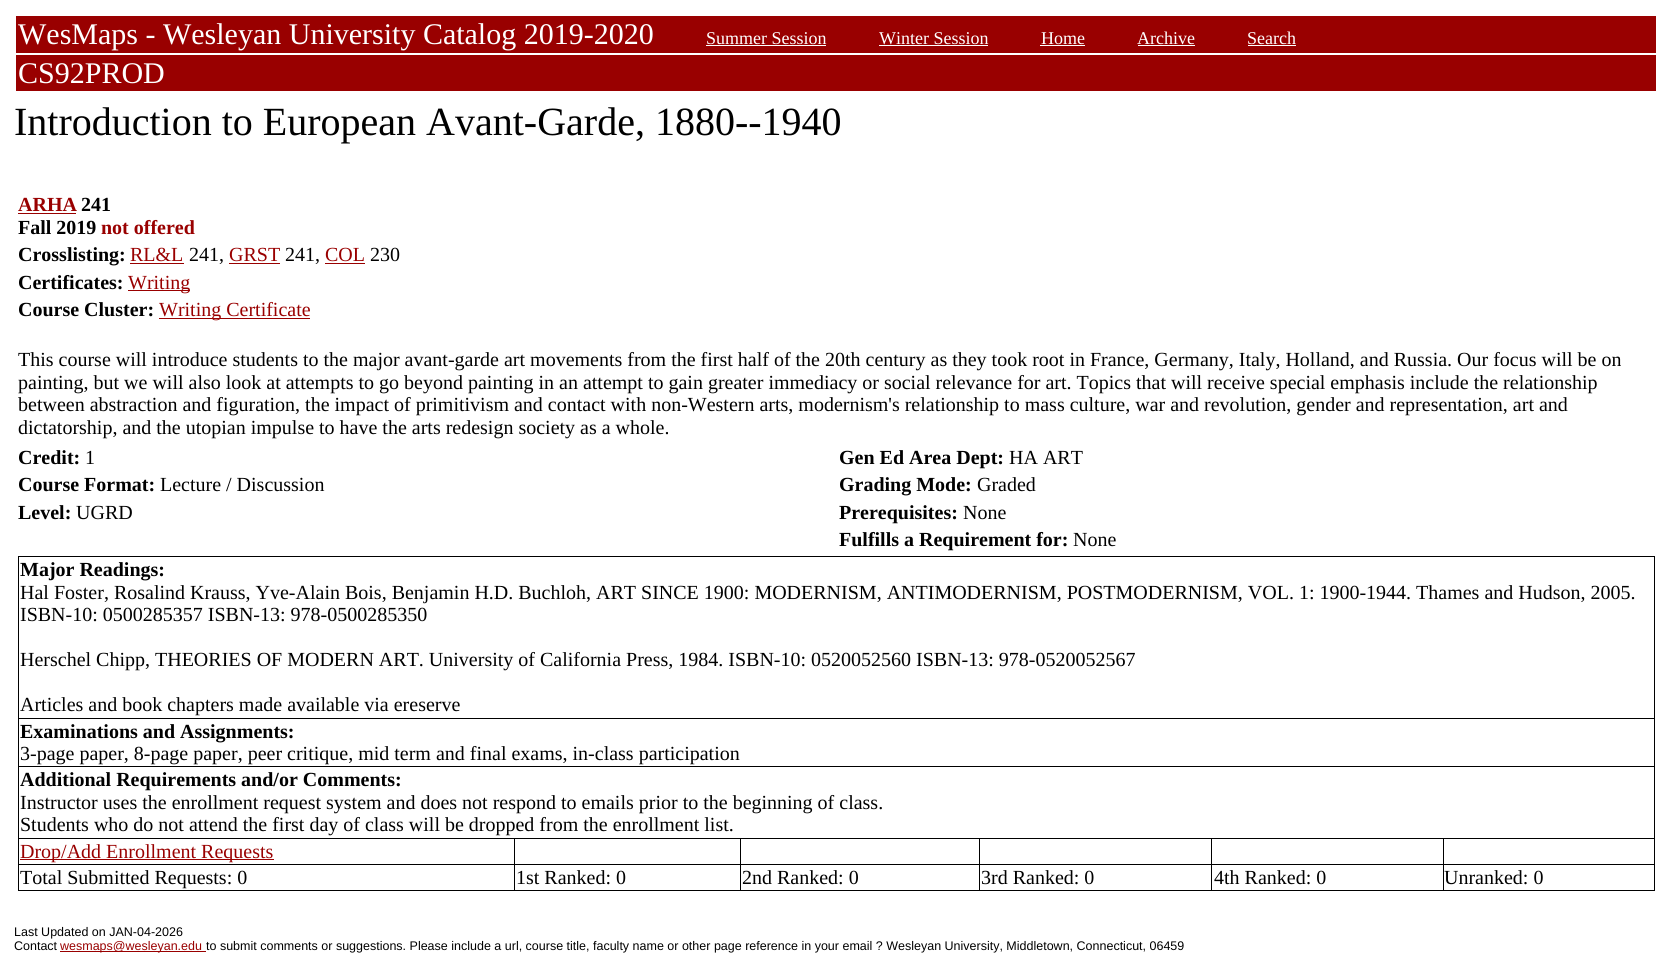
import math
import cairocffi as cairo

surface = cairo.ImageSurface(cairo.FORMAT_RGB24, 1672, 976)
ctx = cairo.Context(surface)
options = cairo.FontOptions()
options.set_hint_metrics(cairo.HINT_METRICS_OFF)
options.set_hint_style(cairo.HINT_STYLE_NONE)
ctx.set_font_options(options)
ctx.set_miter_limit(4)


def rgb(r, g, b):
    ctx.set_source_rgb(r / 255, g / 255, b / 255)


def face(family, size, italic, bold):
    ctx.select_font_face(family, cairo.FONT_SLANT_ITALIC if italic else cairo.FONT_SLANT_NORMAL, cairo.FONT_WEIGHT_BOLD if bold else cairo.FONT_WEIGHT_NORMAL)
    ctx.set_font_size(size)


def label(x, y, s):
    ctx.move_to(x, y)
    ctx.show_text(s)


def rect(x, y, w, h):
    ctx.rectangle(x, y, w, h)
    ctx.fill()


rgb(255, 255, 255)
ctx.paint()
rgb(153, 0, 0)
rect(16, 16, 1640, 37)
face('Liberation Serif', 30, 0, 0)
rgb(255, 255, 255)
label(18, 44, 'WesMaps - Wesleyan University Catalog 2019-2020')
face('Liberation Serif', 18, 0, 0)
label(706, 44, 'Summer Session')
rect(706, 45, 120, 1)
label(879, 44, 'Winter Session')
rect(879, 45, 109, 1)
label(1041, 44, 'Home')
rect(1040, 45, 45, 1)
label(1137, 44, 'Archive')
rect(1138, 45, 57, 1)
label(1247, 44, 'Search')
rect(1248, 45, 48, 1)
rgb(153, 0, 0)
rect(16, 55, 1640, 36)
face('Liberation Serif', 30, 0, 0)
rgb(255, 255, 255)
label(18, 83, 'CS92PROD')
face('Liberation Serif', 40, 0, 0)
rgb(0, 0, 0)
label(14, 135, 'Introduction to European Avant-Garde, 1880--1940')
face('Liberation Serif', 20, 0, 1)
rgb(153, 0, 0)
label(18, 211, 'ARHA')
rect(18, 213, 58, 1)
rgb(0, 0, 0)
label(81, 211, '241')
label(18, 234, 'Fall 2019')
rgb(153, 0, 0)
label(101, 234, 'not offered')
rgb(0, 0, 0)
label(18, 261, 'Crosslisting:')
face('Liberation Serif', 20, 0, 0)
rgb(153, 0, 0)
label(130, 261, 'RL&L')
rect(130, 263, 54, 1)
rgb(0, 0, 0)
label(189, 261, '241,')
rgb(153, 0, 0)
label(229, 261, 'GRST')
rect(229, 263, 51, 1)
rgb(0, 0, 0)
label(285, 261, '241,')
rgb(153, 0, 0)
label(325, 261, 'COL')
rect(325, 263, 40, 1)
rgb(0, 0, 0)
label(370, 261, '230')
face('Liberation Serif', 20, 0, 1)
label(18, 289, 'Certificates:')
rgb(153, 0, 0)
rect(128, 290, 62, 1)
face('Liberation Serif', 20, 0, 0)
label(128, 289, 'Writing')
face('Liberation Serif', 20, 0, 1)
rgb(0, 0, 0)
label(18, 316, 'Course Cluster:')
rgb(153, 0, 0)
rect(159, 318, 151, 1)
face('Liberation Serif', 20, 0, 0)
label(159, 316, 'Writing Certificate')
rgb(0, 0, 0)
label(18, 366, 'This course will introduce students to the major avant-garde art movements from the first half of the 20th century as they took root in France, Germany, Italy, Holland, and Russia. Our focus will be on')
label(18, 389, 'painting, but we will also look at attempts to go beyond painting in an attempt to gain greater immediacy or social relevance for art. Topics that will receive special emphasis include the relationship')
label(18, 411, 'between abstraction and figuration, the impact of primitivism and contact with non-Western arts, modernism\'s relationship to mass culture, war and revolution, gender and representation, art and')
label(18, 434, 'dictatorship, and the utopian impulse to have the arts redesign society as a whole.')
face('Liberation Serif', 20, 0, 1)
label(18, 464, 'Credit:')
face('Liberation Serif', 20, 0, 0)
label(85, 464, '1')
face('Liberation Serif', 20, 0, 1)
label(839, 464, 'Gen Ed Area Dept:')
face('Liberation Serif', 20, 0, 0)
label(1009, 464, 'HA ART')
face('Liberation Serif', 20, 0, 1)
label(18, 491, 'Course Format:')
face('Liberation Serif', 20, 0, 0)
label(160, 491, 'Lecture / Discussion')
face('Liberation Serif', 20, 0, 1)
label(839, 491, 'Grading Mode:')
face('Liberation Serif', 20, 0, 0)
label(977, 491, 'Graded')
face('Liberation Serif', 20, 0, 1)
label(18, 519, 'Level:')
face('Liberation Serif', 20, 0, 0)
label(76, 519, 'UGRD')
face('Liberation Serif', 20, 0, 1)
label(839, 519, 'Prerequisites:')
face('Liberation Serif', 20, 0, 0)
label(963, 519, 'None')
face('Liberation Serif', 20, 0, 1)
label(839, 546, 'Fulfills a Requirement for:')
face('Liberation Serif', 20, 0, 0)
label(1073, 546, 'None')
rect(18, 556, 1637, 1)
rect(1654, 556, 1, 335)
rect(18, 890, 1637, 1)
rect(18, 556, 1, 335)
face('Liberation Serif', 20, 0, 1)
label(20, 576, 'Major Readings:')
face('Liberation Serif', 20, 0, 0)
label(20, 599, 'Hal Foster, Rosalind Krauss, Yve-Alain Bois, Benjamin H.D. Buchloh, ART SINCE 1900: MODERNISM, ANTIMODERNISM, POSTMODERNISM, VOL. 1: 1900-1944. Thames and Hudson, 2005.')
label(20, 621, 'ISBN-10: 0500285357 ISBN-13: 978-0500285350')
label(20, 666, 'Herschel Chipp, THEORIES OF MODERN ART. University of California Press, 1984. ISBN-10: 0520052560 ISBN-13: 978-0520052567')
label(20, 711, 'Articles and book chapters made available via ereserve')
rect(18, 718, 1637, 1)
face('Liberation Serif', 20, 0, 1)
label(20, 738, 'Examinations and Assignments:')
face('Liberation Serif', 20, 0, 0)
label(20, 760, '3-page paper, 8-page paper, peer critique, mid term and final exams, in-class participation')
rect(18, 766, 1637, 1)
face('Liberation Serif', 20, 0, 1)
label(20, 786, 'Additional Requirements and/or Comments:')
face('Liberation Serif', 20, 0, 0)
label(20, 809, 'Instructor uses the enrollment request system and does not respond to emails prior to the beginning of class.')
label(20, 831, 'Students who do not attend the first day of class will be dropped from the enrollment list.')
rect(1443, 838, 212, 1)
rect(1443, 864, 212, 1)
rect(1443, 864, 1, 27)
rect(1211, 864, 233, 1)
rect(1443, 838, 1, 27)
rect(1211, 838, 233, 1)
rect(1211, 864, 1, 27)
rect(979, 864, 234, 1)
rect(1211, 838, 1, 27)
rect(979, 838, 234, 1)
rect(979, 864, 1, 27)
rect(740, 864, 240, 1)
rect(979, 838, 1, 27)
rect(740, 838, 240, 1)
rect(740, 864, 1, 27)
rect(514, 864, 227, 1)
rect(740, 838, 1, 27)
rect(514, 838, 227, 1)
rect(514, 864, 1, 27)
rect(18, 864, 497, 1)
rect(514, 838, 1, 27)
rect(18, 838, 497, 1)
rgb(153, 0, 0)
rect(20, 859, 254, 1)
label(20, 858, 'Drop/Add Enrollment Requests')
rgb(0, 0, 0)
label(20, 884, 'Total Submitted Requests: 0')
label(516, 884, '1st Ranked: 0')
label(742, 884, '2nd Ranked: 0')
label(981, 884, '3rd Ranked: 0')
label(1214, 884, '4th Ranked: 0')
label(1444, 884, 'Unranked: 0')
face('Liberation Sans', 12.5, 0, 0)
label(14, 936, 'Last Updated on JAN-04-2026')
label(14, 950, 'Contact')
rgb(153, 0, 0)
rect(60, 951, 146, 1)
label(60, 950, 'wesmaps@wesleyan.edu')
rgb(0, 0, 0)
label(206, 950, 'to submit comments or suggestions. Please include a url, course title, faculty name or other page reference in your email ? Wesleyan University, Middletown, Connecticut, 06459')
surface.write_to_png('render.png')
